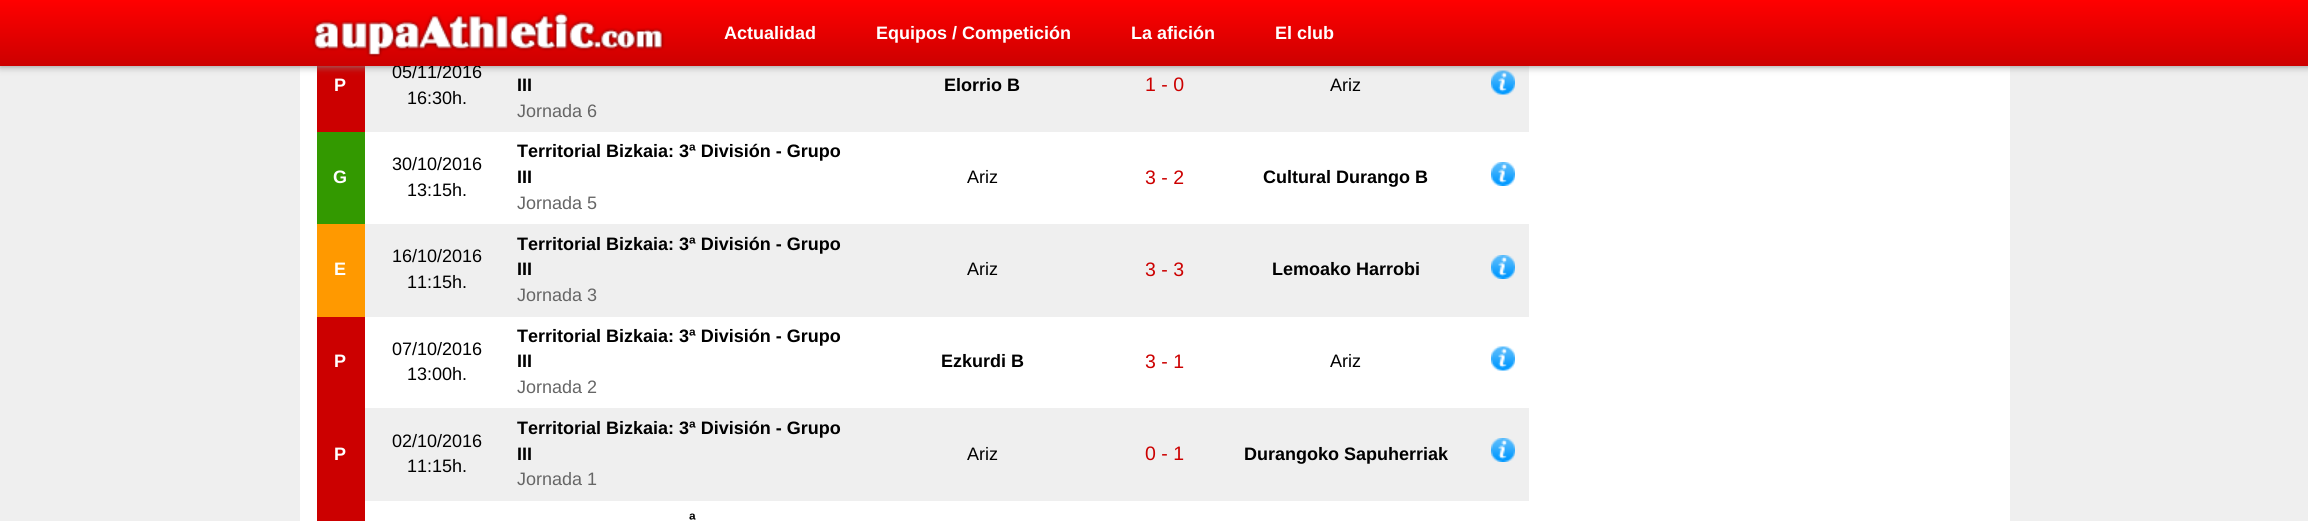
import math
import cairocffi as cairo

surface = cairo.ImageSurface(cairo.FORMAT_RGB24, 2308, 521)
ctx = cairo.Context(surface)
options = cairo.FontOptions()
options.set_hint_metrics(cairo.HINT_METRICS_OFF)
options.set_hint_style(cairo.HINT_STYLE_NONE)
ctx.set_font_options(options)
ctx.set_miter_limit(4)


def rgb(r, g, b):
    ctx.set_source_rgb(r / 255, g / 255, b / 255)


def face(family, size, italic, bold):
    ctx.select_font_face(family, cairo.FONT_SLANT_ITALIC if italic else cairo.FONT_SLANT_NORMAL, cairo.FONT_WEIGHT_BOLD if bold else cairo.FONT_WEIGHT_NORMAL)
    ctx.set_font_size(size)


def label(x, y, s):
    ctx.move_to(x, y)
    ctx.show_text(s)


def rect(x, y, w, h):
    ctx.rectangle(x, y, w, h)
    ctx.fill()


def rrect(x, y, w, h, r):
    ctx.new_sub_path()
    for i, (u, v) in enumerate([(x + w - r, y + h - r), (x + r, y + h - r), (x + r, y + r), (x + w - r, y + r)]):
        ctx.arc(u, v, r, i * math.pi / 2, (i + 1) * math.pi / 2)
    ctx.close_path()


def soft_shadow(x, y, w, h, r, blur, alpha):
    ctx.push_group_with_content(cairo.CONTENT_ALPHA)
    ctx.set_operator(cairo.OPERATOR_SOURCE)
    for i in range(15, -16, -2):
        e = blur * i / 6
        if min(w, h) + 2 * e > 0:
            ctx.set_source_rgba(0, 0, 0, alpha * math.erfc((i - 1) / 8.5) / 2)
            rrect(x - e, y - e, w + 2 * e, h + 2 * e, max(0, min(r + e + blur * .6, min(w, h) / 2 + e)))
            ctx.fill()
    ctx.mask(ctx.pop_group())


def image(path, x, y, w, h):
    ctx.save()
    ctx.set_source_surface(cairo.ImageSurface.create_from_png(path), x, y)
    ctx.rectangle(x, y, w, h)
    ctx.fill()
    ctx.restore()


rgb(239, 239, 239)
ctx.paint()
rgb(255, 255, 255)
rect(300, 66, 1710, 455)
rgb(239, 239, 239)
rect(365, 66, 1164, 66)
rgb(204, 0, 0)
rect(317, 66, 48, 66)
image('image1.png', 1491, 70, 24, 25)
rgb(136, 136, 136)
soft_shadow(0, 0, 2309, 66, 0, 4, 1)
face('Liberation Sans', 18, 0, 0)
rgb(0, 0, 0)
label(392, 78, '05/11/2016')
gradient = cairo.LinearGradient(1154, 0, 1154, 66)
gradient.add_color_stop_rgba(0, 1, 0, 0, 1)
gradient.add_color_stop_rgba(1, 0.8, 0, 0, 1)
ctx.set_source(gradient)
rect(0, 0, 2308, 66)
image('image0.png', 312, 11, 353, 46)
face('Liberation Sans', 18, 0, 1)
rgb(255, 255, 255)
label(724, 39, 'Actualidad')
label(876, 39, 'Equipos / Competición')
label(1131, 39, 'La afición')
label(1275, 39, 'El club')
label(334, 91, 'P')
face('Liberation Sans', 18, 0, 0)
rgb(0, 0, 0)
label(407, 104, '16:30h.')
face('Liberation Sans', 18, 0, 1)
label(517, 91, 'III')
face('Liberation Sans', 18, 0, 0)
rgb(102, 102, 102)
label(517, 117, 'Jornada 6')
face('Liberation Sans', 18, 0, 1)
rgb(0, 0, 0)
label(944, 91, 'Elorrio B')
face('Liberation Sans', 19.5, 0, 0)
rgb(204, 0, 0)
label(1145, 91, '1 - 0')
face('Liberation Sans', 18, 0, 0)
rgb(0, 0, 0)
label(1330, 91, 'Ariz')
rgb(51, 153, 0)
rect(317, 132, 48, 92)
face('Liberation Sans', 18, 0, 1)
rgb(255, 255, 255)
label(333, 183, 'G')
face('Liberation Sans', 18, 0, 0)
rgb(0, 0, 0)
label(392, 170, '30/10/2016')
label(407, 196, '13:15h.')
face('Liberation Sans', 18, 0, 1)
label(517, 157, 'Territorial Bizkaia: 3ª División - Grupo')
label(517, 183, 'III')
face('Liberation Sans', 18, 0, 0)
rgb(102, 102, 102)
label(517, 209, 'Jornada 5')
rgb(0, 0, 0)
label(967, 183, 'Ariz')
face('Liberation Sans', 19.5, 0, 0)
rgb(204, 0, 0)
label(1145, 184, '3 - 2')
face('Liberation Sans', 18, 0, 1)
rgb(0, 0, 0)
label(1263, 183, 'Cultural Durango B')
image('image2.png', 1491, 162, 24, 24)
rgb(239, 239, 239)
rect(365, 224, 1164, 93)
rgb(255, 153, 0)
rect(317, 224, 48, 93)
rgb(255, 255, 255)
label(334, 275, 'E')
face('Liberation Sans', 18, 0, 0)
rgb(0, 0, 0)
label(392, 262, '16/10/2016')
label(407, 288, '11:15h.')
face('Liberation Sans', 18, 0, 1)
label(517, 250, 'Territorial Bizkaia: 3ª División - Grupo')
label(517, 275, 'III')
face('Liberation Sans', 18, 0, 0)
rgb(102, 102, 102)
label(517, 301, 'Jornada 3')
rgb(0, 0, 0)
label(967, 275, 'Ariz')
face('Liberation Sans', 19.5, 0, 0)
rgb(204, 0, 0)
label(1145, 276, '3 - 3')
face('Liberation Sans', 18, 0, 1)
rgb(0, 0, 0)
label(1272, 275, 'Lemoako Harrobi')
image('image3.png', 1491, 255, 24, 24)
rgb(204, 0, 0)
rect(317, 317, 48, 204)
rgb(255, 255, 255)
label(334, 367, 'P')
face('Liberation Sans', 18, 0, 0)
rgb(0, 0, 0)
label(392, 355, '07/10/2016')
label(407, 380, '13:00h.')
face('Liberation Sans', 18, 0, 1)
label(517, 342, 'Territorial Bizkaia: 3ª División - Grupo')
label(517, 367, 'III')
face('Liberation Sans', 18, 0, 0)
rgb(102, 102, 102)
label(517, 393, 'Jornada 2')
face('Liberation Sans', 18, 0, 1)
rgb(0, 0, 0)
label(941, 367, 'Ezkurdi B')
face('Liberation Sans', 19.5, 0, 0)
rgb(204, 0, 0)
label(1145, 368, '3 - 1')
face('Liberation Sans', 18, 0, 0)
rgb(0, 0, 0)
label(1330, 367, 'Ariz')
image('image4.png', 1491, 346, 24, 25)
rgb(239, 239, 239)
rect(365, 408, 1164, 93)
face('Liberation Sans', 18, 0, 1)
rgb(255, 255, 255)
label(334, 460, 'P')
face('Liberation Sans', 18, 0, 0)
rgb(0, 0, 0)
label(392, 447, '02/10/2016')
label(407, 472, '11:15h.')
face('Liberation Sans', 18, 0, 1)
label(517, 434, 'Territorial Bizkaia: 3ª División - Grupo')
label(517, 460, 'III')
face('Liberation Sans', 18, 0, 0)
rgb(102, 102, 102)
label(517, 485, 'Jornada 1')
rgb(0, 0, 0)
label(967, 460, 'Ariz')
face('Liberation Sans', 19.5, 0, 0)
rgb(204, 0, 0)
label(1145, 460, '0 - 1')
face('Liberation Sans', 18, 0, 1)
rgb(0, 0, 0)
label(1244, 460, 'Durangoko Sapuherriak')
image('image3.png', 1491, 438, 24, 24)
label(689, 526, 'ª')
surface.write_to_png('render.png')
